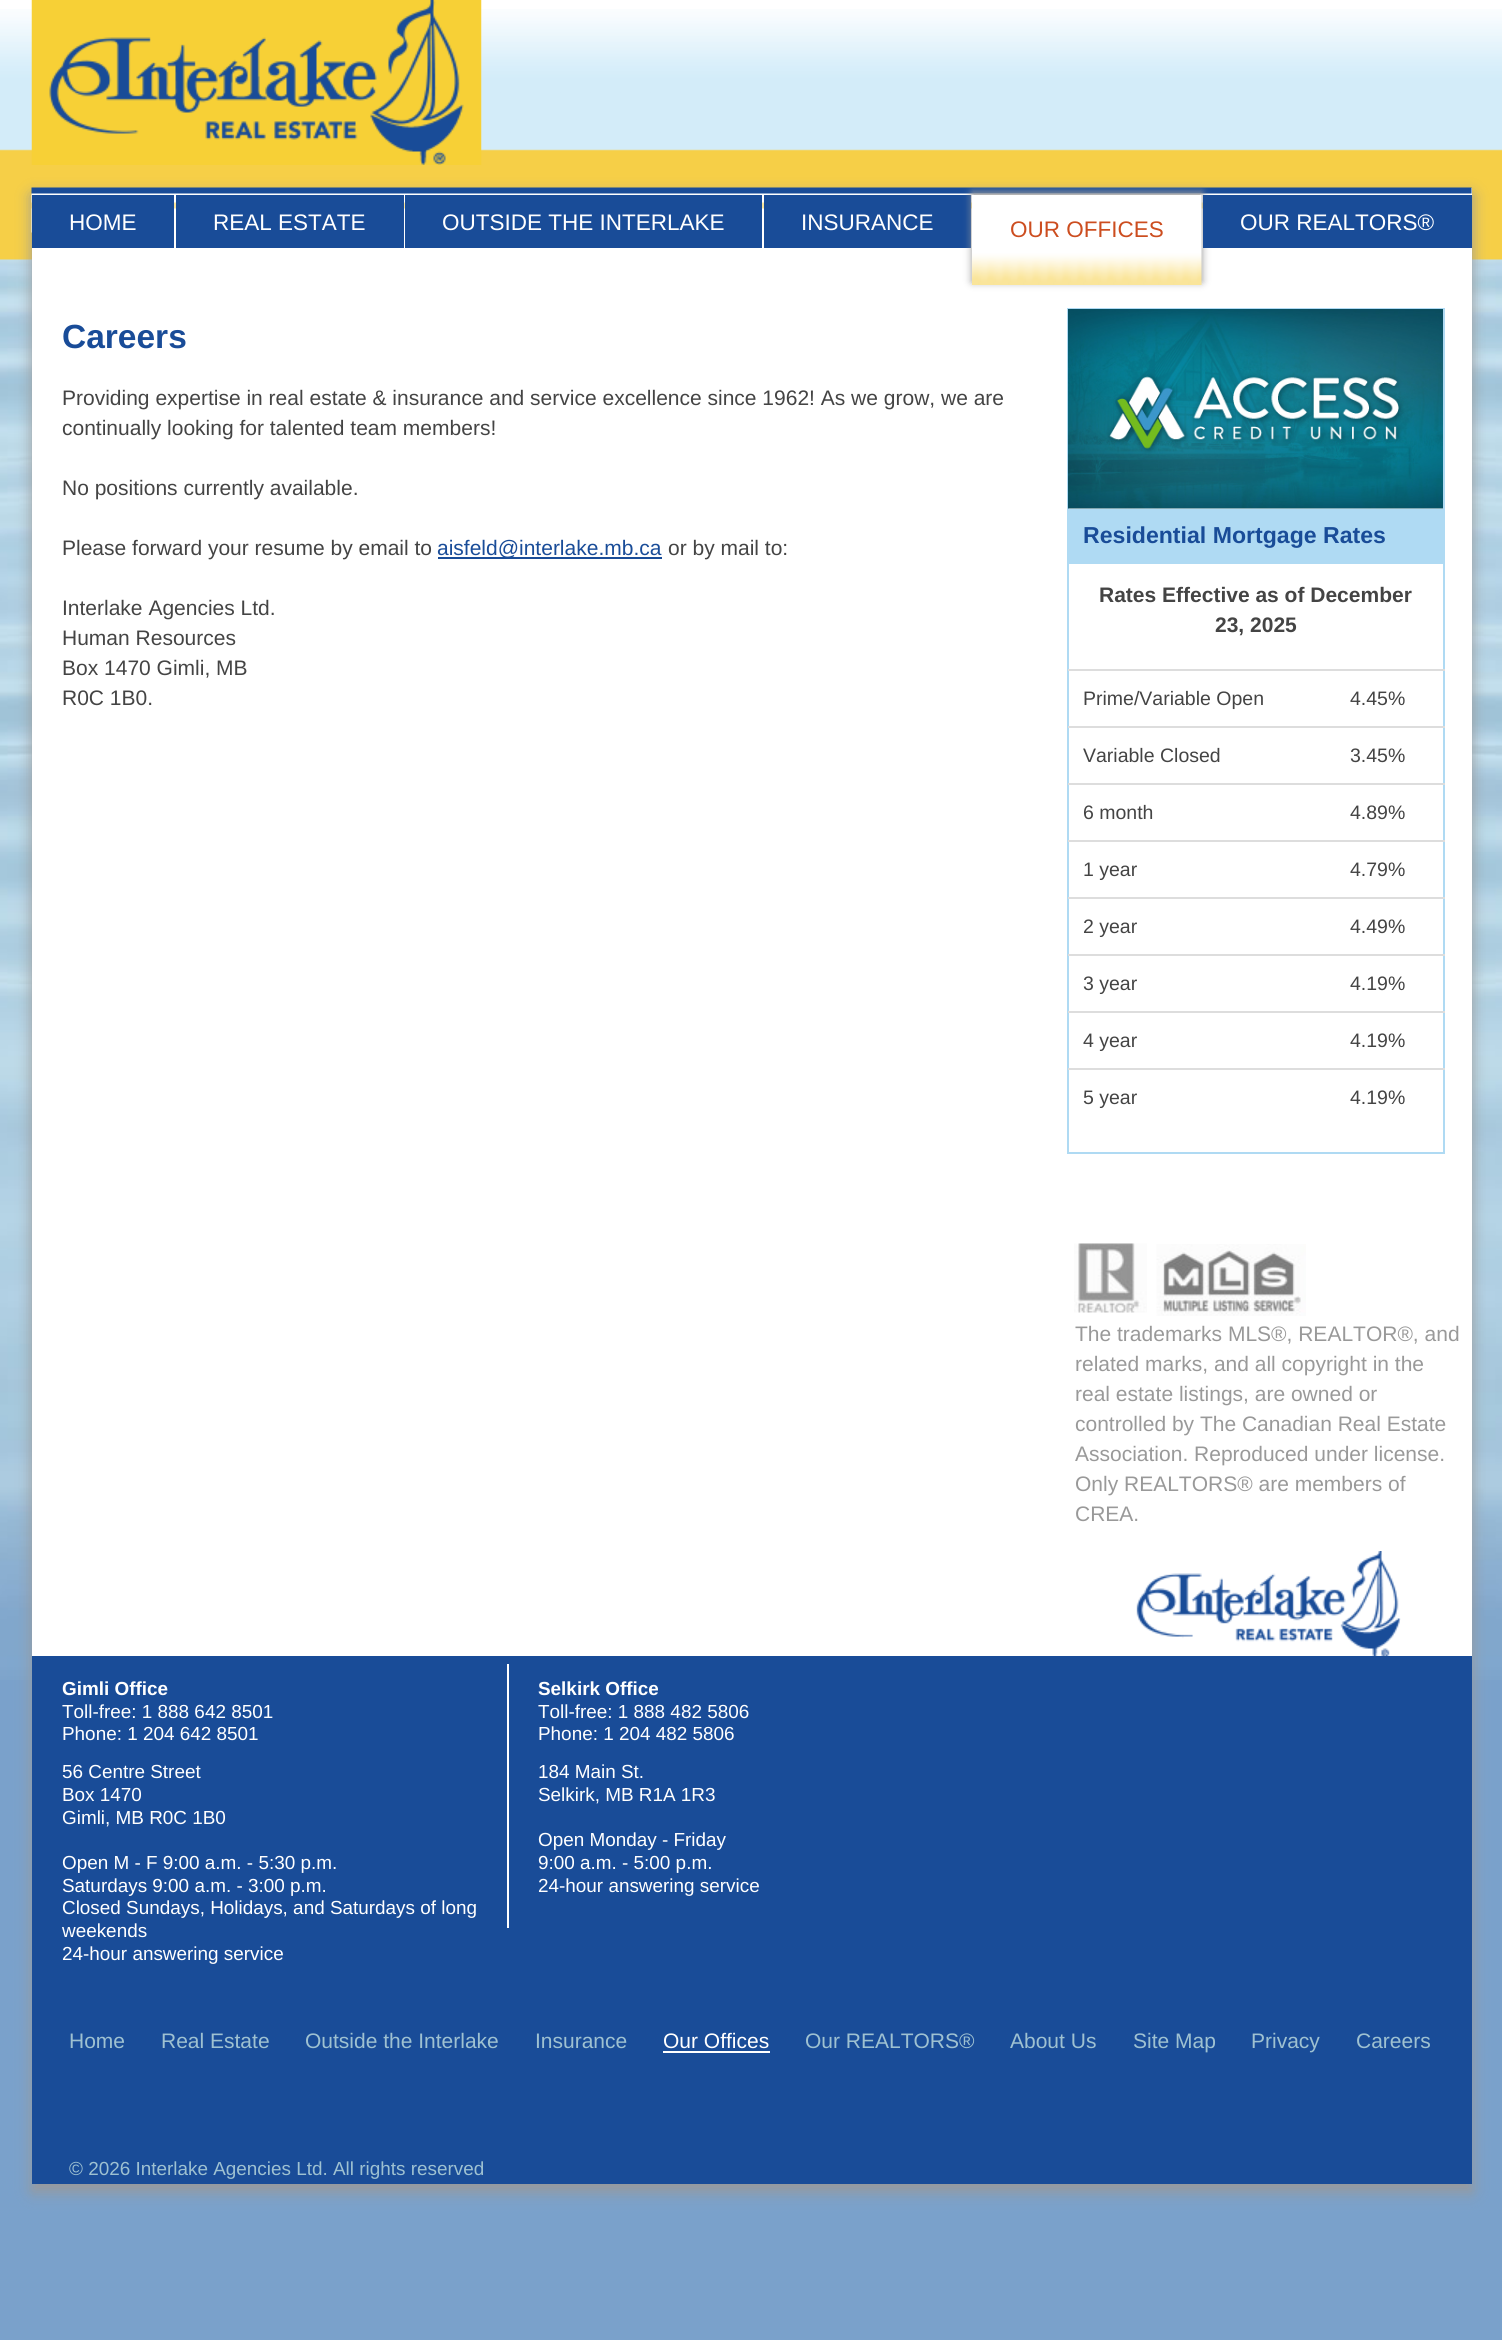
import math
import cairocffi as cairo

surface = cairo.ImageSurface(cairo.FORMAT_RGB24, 1502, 2340)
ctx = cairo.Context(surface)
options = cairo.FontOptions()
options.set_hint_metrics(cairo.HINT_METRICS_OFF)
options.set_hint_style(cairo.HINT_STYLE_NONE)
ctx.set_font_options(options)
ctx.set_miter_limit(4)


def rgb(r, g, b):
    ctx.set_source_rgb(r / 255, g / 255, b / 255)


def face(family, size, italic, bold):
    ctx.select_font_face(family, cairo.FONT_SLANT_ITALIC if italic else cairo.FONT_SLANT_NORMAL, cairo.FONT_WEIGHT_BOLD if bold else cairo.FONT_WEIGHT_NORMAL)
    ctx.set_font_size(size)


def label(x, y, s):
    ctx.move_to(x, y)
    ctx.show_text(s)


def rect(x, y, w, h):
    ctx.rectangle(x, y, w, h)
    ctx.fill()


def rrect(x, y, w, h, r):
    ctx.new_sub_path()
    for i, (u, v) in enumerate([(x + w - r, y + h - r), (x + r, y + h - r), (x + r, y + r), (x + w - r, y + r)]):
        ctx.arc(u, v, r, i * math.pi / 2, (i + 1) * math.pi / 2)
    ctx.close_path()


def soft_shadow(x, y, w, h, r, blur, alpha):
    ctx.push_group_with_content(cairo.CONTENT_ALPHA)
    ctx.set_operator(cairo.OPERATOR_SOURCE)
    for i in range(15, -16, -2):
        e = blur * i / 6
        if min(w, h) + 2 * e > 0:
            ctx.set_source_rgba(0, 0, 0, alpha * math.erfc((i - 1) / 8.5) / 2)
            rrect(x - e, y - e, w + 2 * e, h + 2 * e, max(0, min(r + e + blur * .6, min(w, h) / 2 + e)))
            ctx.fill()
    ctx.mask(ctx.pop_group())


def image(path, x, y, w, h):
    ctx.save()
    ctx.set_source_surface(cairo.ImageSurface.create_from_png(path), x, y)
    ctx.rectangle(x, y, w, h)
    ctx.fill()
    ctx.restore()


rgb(122, 161, 203)
ctx.paint()
image('image0.png', 0, 0, 1502, 1680)
image('image1.png', 0, 9, 1502, 251)
image('image2.png', 31, 0, 451, 165)
rgb(153, 153, 153)
soft_shadow(32, 195, 1440, 1997, 0, 7.5, 1)
rgb(255, 255, 255)
rect(32, 188, 1440, 1468)
image('image4.png', 31, 187, 1441, 46)
rgb(25, 76, 152)
rect(32, 195, 142, 53)
face('Liberation Sans', 22.5, 0, 0)
rgb(255, 255, 255)
label(69, 230, 'HOME')
rgb(25, 76, 152)
rect(176, 195, 228, 53)
rgb(255, 255, 255)
label(213, 230, 'REAL ESTATE')
rgb(25, 76, 152)
rect(405, 195, 357, 53)
rgb(255, 255, 255)
label(442, 230, 'OUTSIDE THE INTERLAKE')
rgb(25, 76, 152)
rect(764, 195, 207, 53)
rgb(255, 255, 255)
label(801, 230, 'INSURANCE')
rgb(153, 153, 153)
soft_shadow(972, 192, 230, 90, 0, 4, 1)
image('image3.png', 972, 195, 230, 90)
rgb(204, 77, 31)
label(1010, 237, 'OUR OFFICES')
rgb(25, 76, 152)
rect(1203, 195, 269, 53)
rgb(255, 255, 255)
label(1240, 230, 'OUR REALTORS®')
face('Liberation Sans', 33.5, 0, 1)
rgb(25, 76, 152)
label(62, 348, 'Careers')
face('Liberation Sans', 21, 0, 0)
rgb(68, 68, 68)
label(62, 405, 'Providing expertise in real estate & insurance and service excellence since 1962! As we grow, we are')
label(62, 435, 'continually looking for talented team members!')
label(62, 495, 'No positions currently available.')
label(62, 555, 'Please forward your resume by email to')
rgb(25, 76, 152)
rect(438, 557, 224, 2)
label(437, 555, 'aisfeld@interlake.mb.ca')
rgb(68, 68, 68)
label(668, 555, 'or by mail to:')
label(62, 615, 'Interlake Agencies Ltd.')
label(62, 645, 'Human Resources')
label(62, 675, 'Box 1470 Gimli, MB')
label(62, 705, 'R0C 1B0.')
ctx.rectangle(1068, 309, 376, 844)
rgb(175, 218, 243)
ctx.stroke()
image('image5.png', 1068, 309, 375, 200)
rect(1069, 509, 374, 55)
face('Liberation Sans', 23.1, 0, 1)
rgb(25, 76, 152)
label(1083, 543, 'Residential Mortgage Rates')
face('Liberation Sans', 21, 0, 1)
rgb(68, 68, 68)
label(1099, 602, 'Rates Effective as of December')
label(1215, 632, '23, 2025')
face('Liberation Sans', 19.5, 0, 0)
label(1083, 705, 'Prime/Variable Open')
rgb(221, 221, 221)
rect(1068, 669, 377, 2)
rgb(68, 68, 68)
label(1350, 705, '4.45%')
label(1083, 762, 'Variable Closed')
rgb(221, 221, 221)
rect(1068, 726, 377, 2)
rgb(68, 68, 68)
label(1350, 762, '3.45%')
label(1083, 819, '6 month')
rgb(221, 221, 221)
rect(1068, 783, 377, 2)
rgb(68, 68, 68)
label(1350, 819, '4.89%')
label(1083, 876, '1 year')
rgb(221, 221, 221)
rect(1068, 840, 377, 2)
rgb(68, 68, 68)
label(1350, 876, '4.79%')
label(1083, 933, '2 year')
rgb(221, 221, 221)
rect(1068, 897, 377, 2)
rgb(68, 68, 68)
label(1350, 933, '4.49%')
label(1083, 990, '3 year')
rgb(221, 221, 221)
rect(1068, 954, 377, 2)
rgb(68, 68, 68)
label(1350, 990, '4.19%')
label(1083, 1047, '4 year')
rgb(221, 221, 221)
rect(1068, 1011, 377, 2)
rgb(68, 68, 68)
label(1350, 1047, '4.19%')
label(1083, 1104, '5 year')
rgb(221, 221, 221)
rect(1068, 1068, 377, 2)
rgb(68, 68, 68)
label(1350, 1104, '4.19%')
image('image6.png', 1074, 1243, 73, 70)
image('image7.png', 1156, 1244, 150, 72)
face('Liberation Sans', 21, 0, 0)
rgb(153, 153, 153)
label(1075, 1341, 'The trademarks MLS®, REALTOR®, and')
label(1075, 1371, 'related marks, and all copyright in the')
label(1075, 1401, 'real estate listings, are owned or')
label(1075, 1431, 'controlled by The Canadian Real Estate')
label(1075, 1461, 'Association. Reproduced under license.')
label(1075, 1491, 'Only REALTORS® are members of')
label(1075, 1521, 'CREA.')
image('image8.png', 1136, 1551, 265, 105)
rgb(25, 76, 152)
rect(32, 1656, 1440, 528)
face('Liberation Sans', 18.9, 0, 1)
rgb(255, 255, 255)
label(62, 1695, 'Gimli Office')
face('Liberation Sans', 18.9, 0, 0)
label(62, 1718, 'Toll-free: 1 888 642 8501')
label(62, 1740, 'Phone: 1 204 642 8501')
label(62, 1778, '56 Centre Street')
label(62, 1801, 'Box 1470')
label(62, 1824, 'Gimli, MB R0C 1B0')
label(62, 1869, 'Open M - F 9:00 a.m. - 5:30 p.m.')
label(62, 1892, 'Saturdays 9:00 a.m. - 3:00 p.m.')
label(62, 1914, 'Closed Sundays, Holidays, and Saturdays of long')
label(62, 1937, 'weekends')
label(62, 1960, '24-hour answering service')
rect(507, 1664, 2, 264)
face('Liberation Sans', 18.9, 0, 1)
label(538, 1695, 'Selkirk Office')
face('Liberation Sans', 18.9, 0, 0)
label(538, 1718, 'Toll-free: 1 888 482 5806')
label(538, 1740, 'Phone: 1 204 482 5806')
label(538, 1778, '184 Main St.')
label(538, 1801, 'Selkirk, MB R1A 1R3')
label(538, 1846, 'Open Monday - Friday')
label(538, 1869, '9:00 a.m. - 5:00 p.m.')
label(538, 1892, '24-hour answering service')
face('Liberation Sans', 21, 0, 0)
rgb(158, 193, 209)
label(69, 2048, 'Home')
label(161, 2048, 'Real Estate')
label(305, 2048, 'Outside the Interlake')
label(535, 2048, 'Insurance')
rgb(255, 255, 255)
label(663, 2048, 'Our Offices')
rect(663, 2051, 107, 2)
rgb(158, 193, 209)
label(805, 2048, 'Our REALTORS®')
label(1010, 2048, 'About Us')
label(1133, 2048, 'Site Map')
label(1251, 2048, 'Privacy')
label(1356, 2048, 'Careers')
face('Liberation Sans', 18.9, 0, 0)
label(69, 2175, '© 2026 Interlake Agencies Ltd. All rights reserved')
surface.write_to_png('render.png')
